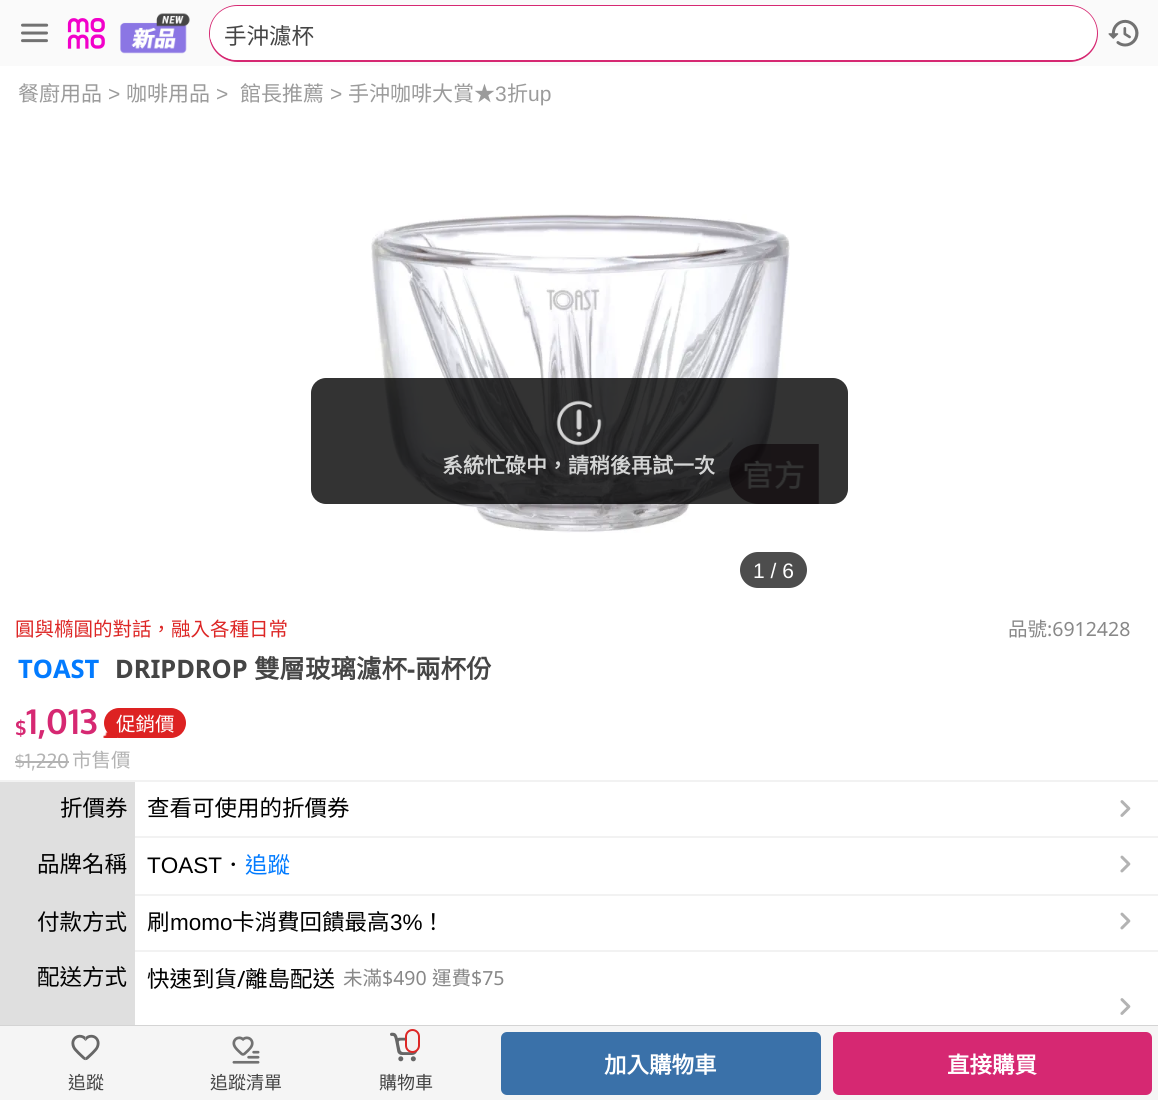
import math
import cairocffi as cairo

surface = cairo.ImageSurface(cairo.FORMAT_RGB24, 1158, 1100)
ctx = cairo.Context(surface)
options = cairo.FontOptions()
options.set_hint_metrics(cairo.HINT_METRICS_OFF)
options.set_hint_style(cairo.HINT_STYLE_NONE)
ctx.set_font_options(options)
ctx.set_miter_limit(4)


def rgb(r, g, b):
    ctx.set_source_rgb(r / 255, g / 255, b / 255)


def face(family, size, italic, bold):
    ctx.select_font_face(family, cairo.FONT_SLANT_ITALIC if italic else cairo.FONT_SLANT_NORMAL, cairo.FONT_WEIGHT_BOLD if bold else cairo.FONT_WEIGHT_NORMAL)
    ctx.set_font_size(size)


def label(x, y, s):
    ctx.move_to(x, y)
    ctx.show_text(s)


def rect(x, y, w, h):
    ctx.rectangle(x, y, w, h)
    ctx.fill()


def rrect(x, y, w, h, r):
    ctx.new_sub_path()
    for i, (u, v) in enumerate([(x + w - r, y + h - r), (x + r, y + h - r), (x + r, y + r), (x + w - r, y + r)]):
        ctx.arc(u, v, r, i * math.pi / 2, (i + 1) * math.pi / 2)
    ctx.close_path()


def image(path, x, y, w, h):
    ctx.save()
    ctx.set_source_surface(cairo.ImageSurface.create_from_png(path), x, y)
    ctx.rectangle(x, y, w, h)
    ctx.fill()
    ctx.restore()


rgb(255, 255, 255)
ctx.paint()
rgb(250, 250, 250)
rect(0, 0, 1158, 66)
image('image0.png', 21, 23, 28, 20)
image('image1.png', 67, 18, 38, 31)
image('image2.png', 120, 13, 70, 41)
rrect(210, 6, 887, 55, 27.5)
rgb(214, 40, 114)
ctx.stroke()
rgb(255, 255, 255)
rrect(210, 6, 887, 54, 27)
ctx.fill()
rrect(210, 20, 881, 30, 15)
ctx.fill()
face('Noto Sans CJK TC', 22.5, 0, 0)
rgb(69, 69, 69)
label(224, 44, '手沖濾杯')
image('image3.png', 1108, 19, 31, 28)
face('Noto Sans CJK TC', 21, 0, 0)
rgb(155, 155, 155)
label(18, 101, '餐廚用品')
face('Liberation Sans', 21, 0, 0)
label(108, 101, '>')
face('Noto Sans CJK TC', 21, 0, 0)
label(126, 101, '咖啡用品')
face('Liberation Sans', 21, 0, 0)
label(216, 101, '>')
face('Noto Sans CJK TC', 21, 0, 0)
label(240, 101, '館長推薦')
face('Liberation Sans', 21, 0, 0)
label(330, 101, '>')
face('Noto Sans CJK TC', 21, 0, 0)
label(348, 101, '手沖咖啡大賞★')
face('Liberation Sans', 21, 0, 0)
label(495, 101, '3')
face('Noto Sans CJK TC', 21, 0, 0)
label(507, 101, '折')
face('Liberation Sans', 21, 0, 0)
label(528, 101, 'up')
image('image5.png', 371, 214, 419, 319)
image('image6.png', 729, 444, 90, 60)
ctx.set_source_rgba(0, 0, 0, 0.8)
rrect(311, 378, 537, 126, 15)
ctx.fill()
image('image4.png', 556, 400, 46, 46)
face('Noto Sans CJK TC', 21, 0, 1)
rgb(212, 213, 213)
label(442, 473, '系統忙碌中，請稍後再試一次')
rgb(77, 77, 77)
rrect(740, 552, 67, 36, 18)
ctx.fill()
face('Liberation Sans', 21, 0, 0)
rgb(255, 255, 255)
label(753, 578, '1 / 6')
face('Noto Sans CJK TC', 19.5, 0, 0)
rgb(221, 39, 38)
label(15, 636, '圓與橢圓的對話，融入各種日常')
rgb(136, 136, 136)
label(1008, 636, '品號')
face('Noto Sans', 19.5, 0, 0)
label(1047, 636, ':6912428')
face('Noto Sans', 25.5, 0, 1)
rgb(2, 123, 255)
label(18, 678, 'TOAST')
rgb(69, 69, 69)
label(115, 678, 'DRIPDROP')
face('Noto Sans CJK TC', 25.5, 0, 1)
label(254, 678, '雙層玻璃濾杯')
face('Noto Sans', 25.5, 0, 1)
label(407, 678, '-')
face('Noto Sans CJK TC', 25.5, 0, 1)
label(415, 678, '兩杯份')
face('Oxygen', 19.5, 0, 1)
rgb(214, 40, 114)
label(15, 735, '$')
face('Oxygen', 34.5, 0, 1)
label(26, 734, '1,013')
rgb(221, 34, 34)
rrect(104, 708, 82, 30, 15)
ctx.fill()
face('Noto Sans CJK TC', 19.5, 0, 0)
rgb(255, 255, 255)
label(116, 731, '促銷價')
image('image7.png', 103, 732, 14, 6)
face('Oxygen', 16, 0, 0)
rgb(179, 179, 179)
label(15, 767, '$')
rect(15, 761, 11, 2)
face('Oxygen', 19.5, 0, 0)
label(25, 768, '1,220')
rect(26, 761, 43, 2)
face('Noto Sans CJK TC', 19.5, 0, 0)
label(72, 767, '市售價')
rgb(242, 242, 242)
rect(0, 780, 1158, 2)
rgb(223, 223, 223)
rect(0, 782, 135, 243)
face('Noto Sans CJK TC', 22.5, 0, 0)
rgb(0, 0, 0)
label(60, 816, '折價券')
rgb(242, 242, 242)
rect(135, 836, 1023, 2)
rgb(0, 0, 0)
label(147, 816, '查看可使用的折價券')
image('image8.png', 1120, 800, 11, 17)
label(37, 872, '品牌名稱')
rgb(242, 242, 242)
rect(135, 894, 1023, 2)
face('Liberation Sans', 22.5, 0, 0)
rgb(0, 0, 0)
label(147, 873, 'TOAST')
face('Noto Sans CJK TC', 22.5, 0, 0)
label(222, 873, '．')
rgb(2, 123, 255)
label(245, 873, '追蹤')
image('image9.png', 1120, 855, 11, 18)
rgb(0, 0, 0)
label(37, 930, '付款方式')
rgb(242, 242, 242)
rect(135, 950, 1023, 2)
rgb(0, 0, 0)
label(147, 930, '刷')
face('Liberation Sans', 22.5, 0, 0)
label(170, 930, 'momo')
face('Noto Sans CJK TC', 22.5, 0, 0)
label(232, 930, '卡消費回饋最高')
face('Liberation Sans', 22.5, 0, 0)
label(390, 930, '3%')
face('Noto Sans CJK TC', 22.5, 0, 0)
label(422, 930, '！')
image('image9.png', 1120, 912, 11, 18)
label(37, 985, '配送方式')
label(147, 987, '快速到貨')
face('Noto Sans', 22.5, 0, 0)
label(237, 987, '/')
face('Noto Sans CJK TC', 22.5, 0, 0)
label(245, 987, '離島配送')
face('Noto Sans CJK TC', 19.5, 0, 0)
rgb(136, 136, 136)
label(343, 985, '未滿')
face('Noto Sans', 19.5, 0, 0)
label(382, 985, '$490')
face('Noto Sans CJK TC', 19.5, 0, 0)
label(432, 985, '運費')
face('Noto Sans', 19.5, 0, 0)
label(471, 985, '$75')
image('image8.png', 1120, 998, 11, 17)
rgb(212, 212, 212)
rect(0, 1025, 1158, 1)
rgb(245, 245, 245)
rect(0, 1026, 1158, 74)
rgb(58, 113, 169)
rrect(501, 1032, 320, 63, 6)
ctx.fill()
face('Noto Sans CJK TC', 22.5, 0, 1)
rgb(255, 255, 255)
label(604, 1073, '加入購物車')
rgb(214, 40, 114)
rrect(833, 1032, 319, 63, 6)
ctx.fill()
rgb(255, 255, 255)
label(947, 1073, '直接購買')
image('image10.png', 71, 1034, 29, 27)
face('Noto Sans CJK TC', 18, 0, 0)
rgb(69, 69, 69)
label(68, 1089, '追蹤')
image('image11.png', 232, 1036, 28, 28)
label(210, 1089, '追蹤清單')
image('image12.png', 390, 1032, 28, 30)
rgb(242, 242, 242)
rrect(406, 1030, 13, 22, 6.5)
ctx.fill_preserve()
rgb(221, 39, 38)
ctx.stroke()
rgb(69, 69, 69)
label(379, 1089, '購物車')
surface.write_to_png('render.png')
